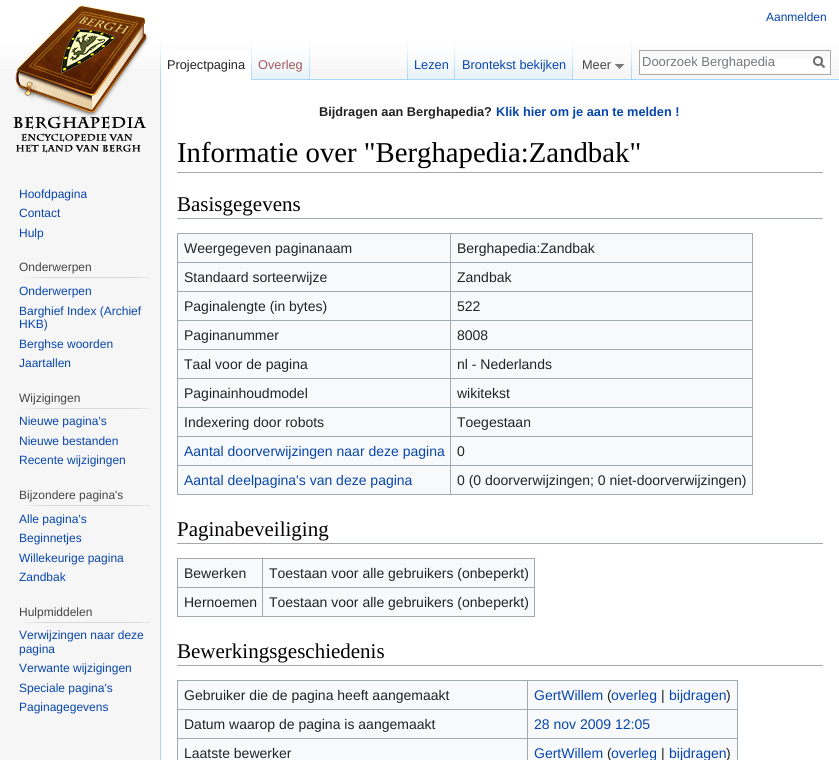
import math
import cairocffi as cairo

surface = cairo.ImageSurface(cairo.FORMAT_RGB24, 839, 760)
ctx = cairo.Context(surface)
options = cairo.FontOptions()
options.set_hint_metrics(cairo.HINT_METRICS_OFF)
options.set_hint_style(cairo.HINT_STYLE_NONE)
ctx.set_font_options(options)
ctx.set_miter_limit(4)


def rgb(r, g, b):
    ctx.set_source_rgb(r / 255, g / 255, b / 255)


def face(family, size, italic, bold):
    ctx.select_font_face(family, cairo.FONT_SLANT_ITALIC if italic else cairo.FONT_SLANT_NORMAL, cairo.FONT_WEIGHT_BOLD if bold else cairo.FONT_WEIGHT_NORMAL)
    ctx.set_font_size(size)


def label(x, y, s):
    ctx.move_to(x, y)
    ctx.show_text(s)


def rect(x, y, w, h):
    ctx.rectangle(x, y, w, h)
    ctx.fill()


def image(path, x, y, w, h):
    ctx.save()
    ctx.set_source_surface(cairo.ImageSurface.create_from_png(path), x, y)
    ctx.rectangle(x, y, w, h)
    ctx.fill()
    ctx.restore()


rgb(246, 246, 246)
ctx.paint()
gradient = cairo.LinearGradient(420, 0, 420, 80)
gradient.add_color_stop_rgba(0.5, 1, 1, 1, 1)
gradient.add_color_stop_rgba(1, 0.965, 0.965, 0.965, 1)
ctx.set_source(gradient)
rect(0, 0, 839, 69)
face('Liberation Sans', 12, 0, 0)
rgb(6, 69, 173)
label(766, 21, 'Aanmelden')
image('image0.png', 160, 40, 1, 39)
rgb(255, 255, 255)
rect(161, 51, 90, 29)
image('image1.png', 251, 40, 1, 40)
face('Liberation Sans', 12.75, 0, 0)
rgb(34, 34, 34)
label(167, 69, 'Projectpagina')
image('image2.png', 252, 40, 58, 40)
image('image0.png', 309, 40, 1, 39)
rgb(165, 88, 88)
label(258, 69, 'Overleg')
image('image0.png', 407, 40, 1, 39)
rgb(167, 215, 249)
rect(310, 79, 529, 1)
image('image3.png', 408, 40, 47, 40)
image('image0.png', 454, 40, 1, 39)
rgb(6, 69, 173)
label(414, 69, 'Lezen')
image('image4.png', 455, 40, 118, 40)
image('image0.png', 572, 40, 1, 39)
label(462, 69, 'Brontekst bekijken')
image('image0.png', 631, 40, 1, 39)
rgb(121, 121, 121)
ctx.new_path()
ctx.move_to(624.5, 64)
ctx.line_to(619.5, 69)
ctx.line_to(614.5, 64)
ctx.close_path()
ctx.fill()
rgb(68, 68, 68)
label(582, 69, 'Meer')
rgb(255, 255, 255)
rect(640, 59, 190, 15)
image('image5.png', 640, 51, 190, 8)
ctx.rectangle(639.5, 50.5, 191, 24)
rgb(170, 170, 170)
ctx.set_line_width(1)
ctx.stroke()
face('Liberation Sans', 13, 0, 0)
rgb(114, 119, 125)
label(642, 66, 'Doorzoek Berghapedia')
ctx.new_path()
ctx.move_to(824.5, 67.5)
ctx.line_to(820.5, 63.5)
rgb(108, 108, 108)
ctx.set_line_width(2)
ctx.stroke()
ctx.arc(818, 61, 4, 0, 2 * math.pi)
ctx.stroke()
image('image6.png', 13, 5, 135, 148)
face('Liberation Sans', 12, 0, 0)
rgb(6, 69, 173)
label(19, 198, 'Hoofdpagina')
label(19, 217, 'Contact')
label(19, 237, 'Hulp')
rgb(68, 68, 68)
label(19, 271, 'Onderwerpen')
image('image7.png', 22, 277, 128, 1)
rgb(6, 69, 173)
label(19, 295, 'Onderwerpen')
label(19, 315, 'Barghief Index (Archief')
label(19, 328, 'HKB)')
label(19, 348, 'Berghse woorden')
label(19, 367, 'Jaartallen')
rgb(68, 68, 68)
label(19, 402, 'Wijzigingen')
image('image7.png', 22, 408, 128, 1)
rgb(6, 69, 173)
label(19, 425, 'Nieuwe pagina\'s')
label(19, 445, 'Nieuwe bestanden')
label(19, 464, 'Recente wijzigingen')
rgb(68, 68, 68)
label(19, 499, 'Bijzondere pagina\'s')
image('image7.png', 22, 505, 128, 1)
rgb(6, 69, 173)
label(19, 523, 'Alle pagina\'s')
label(19, 542, 'Beginnetjes')
label(19, 562, 'Willekeurige pagina')
label(19, 581, 'Zandbak')
rgb(68, 68, 68)
label(19, 616, 'Hulpmiddelen')
image('image7.png', 22, 622, 128, 1)
rgb(6, 69, 173)
label(19, 639, 'Verwijzingen naar deze')
label(19, 653, 'pagina')
label(19, 672, 'Verwante wijzigingen')
label(19, 692, 'Speciale pagina\'s')
label(19, 711, 'Paginagegevens')
rgb(255, 255, 255)
rect(161, 80, 678, 680)
rgb(167, 215, 249)
rect(160, 79, 1, 681)
face('Liberation Sans', 12.75, 0, 1)
rgb(34, 34, 34)
label(319, 116, 'Bijdragen aan Berghapedia?')
rgb(6, 69, 173)
label(496, 116, 'Klik hier om je aan te melden !')
rgb(162, 169, 177)
rect(177, 172, 646, 1)
face('Liberation Serif', 28.75, 0, 0)
rgb(0, 0, 0)
label(177, 162, 'Informatie over "Berghapedia:Zandbak"')
rgb(162, 169, 177)
rect(177, 218, 646, 1)
face('Liberation Serif', 21, 0, 0)
rgb(0, 0, 0)
label(177, 211, 'Basisgegevens')
rgb(248, 249, 250)
rect(178, 234, 574, 260)
rgb(162, 169, 177)
rect(177, 233, 576, 1)
rect(752, 233, 1, 262)
rect(177, 494, 576, 1)
rect(177, 233, 1, 262)
face('Liberation Sans', 14, 0, 0)
rgb(34, 34, 34)
label(184, 253, 'Weergegeven paginanaam')
rgb(162, 169, 177)
rect(450, 262, 303, 1)
rect(450, 291, 303, 1)
rect(450, 320, 303, 1)
rect(450, 349, 303, 1)
rect(450, 378, 303, 1)
rect(450, 407, 303, 1)
rect(450, 436, 303, 1)
rect(450, 465, 303, 1)
rect(450, 465, 1, 30)
rect(177, 465, 274, 1)
rect(450, 436, 1, 30)
rect(177, 436, 274, 1)
rect(450, 407, 1, 30)
rect(177, 407, 274, 1)
rect(450, 378, 1, 30)
rect(177, 378, 274, 1)
rect(450, 349, 1, 30)
rect(177, 349, 274, 1)
rect(450, 320, 1, 30)
rect(177, 320, 274, 1)
rect(450, 291, 1, 30)
rect(177, 291, 274, 1)
rect(450, 262, 1, 30)
rect(177, 262, 274, 1)
rect(450, 233, 1, 30)
rgb(34, 34, 34)
label(457, 253, 'Berghapedia:Zandbak')
label(184, 282, 'Standaard sorteerwijze')
label(457, 282, 'Zandbak')
label(184, 311, 'Paginalengte (in bytes)')
label(457, 311, '522')
label(184, 340, 'Paginanummer')
label(457, 340, '8008')
label(184, 369, 'Taal voor de pagina')
label(457, 369, 'nl - Nederlands')
label(184, 398, 'Paginainhoudmodel')
label(457, 398, 'wikitekst')
label(184, 427, 'Indexering door robots')
label(457, 427, 'Toegestaan')
rgb(6, 69, 173)
label(184, 456, 'Aantal doorverwijzingen naar deze pagina')
rgb(34, 34, 34)
label(457, 456, '0')
rgb(6, 69, 173)
label(184, 485, 'Aantal deelpagina\'s van deze pagina')
rgb(34, 34, 34)
label(457, 485, '0 (0 doorverwijzingen; 0 niet-doorverwijzingen)')
rgb(162, 169, 177)
rect(177, 543, 646, 1)
face('Liberation Serif', 21, 0, 0)
rgb(0, 0, 0)
label(177, 536, 'Paginabeveiliging')
rgb(248, 249, 250)
rect(178, 559, 356, 57)
rgb(162, 169, 177)
rect(177, 558, 358, 1)
rect(534, 558, 1, 59)
rect(177, 616, 358, 1)
rect(177, 558, 1, 59)
face('Liberation Sans', 14, 0, 0)
rgb(34, 34, 34)
label(184, 578, 'Bewerken')
rgb(162, 169, 177)
rect(262, 587, 273, 1)
rect(262, 587, 1, 30)
rect(177, 587, 86, 1)
rect(262, 558, 1, 30)
rgb(34, 34, 34)
label(269, 578, 'Toestaan voor alle gebruikers (onbeperkt)')
label(184, 607, 'Hernoemen')
label(269, 607, 'Toestaan voor alle gebruikers (onbeperkt)')
rgb(162, 169, 177)
rect(177, 665, 646, 1)
face('Liberation Serif', 21, 0, 0)
rgb(0, 0, 0)
label(177, 658, 'Bewerkingsgeschiedenis')
rgb(248, 249, 250)
rect(178, 681, 559, 79)
rgb(162, 169, 177)
rect(177, 680, 561, 1)
rect(737, 680, 1, 80)
rect(177, 680, 1, 80)
face('Liberation Sans', 14, 0, 0)
rgb(34, 34, 34)
label(184, 700, 'Gebruiker die de pagina heeft aangemaakt')
rgb(162, 169, 177)
rect(527, 709, 211, 1)
rect(527, 738, 211, 1)
rect(527, 738, 1, 22)
rect(177, 738, 351, 1)
rect(527, 709, 1, 30)
rect(177, 709, 351, 1)
rect(527, 680, 1, 30)
rgb(6, 69, 173)
label(534, 700, 'GertWillem')
rgb(34, 34, 34)
label(607, 700, '(')
rgb(6, 69, 173)
label(611, 700, 'overleg')
rgb(34, 34, 34)
label(661, 700, '|')
rgb(6, 69, 173)
label(669, 700, 'bijdragen')
rgb(34, 34, 34)
label(726, 700, ')')
label(184, 729, 'Datum waarop de pagina is aangemaakt')
rgb(6, 69, 173)
label(534, 729, '28 nov 2009 12:05')
rgb(34, 34, 34)
label(184, 758, 'Laatste bewerker')
rgb(6, 69, 173)
label(534, 758, 'GertWillem')
rgb(34, 34, 34)
label(607, 758, '(')
rgb(6, 69, 173)
label(611, 758, 'overleg')
rgb(34, 34, 34)
label(661, 758, '|')
rgb(6, 69, 173)
label(669, 758, 'bijdragen')
rgb(34, 34, 34)
label(726, 758, ')')
surface.write_to_png('render.png')
